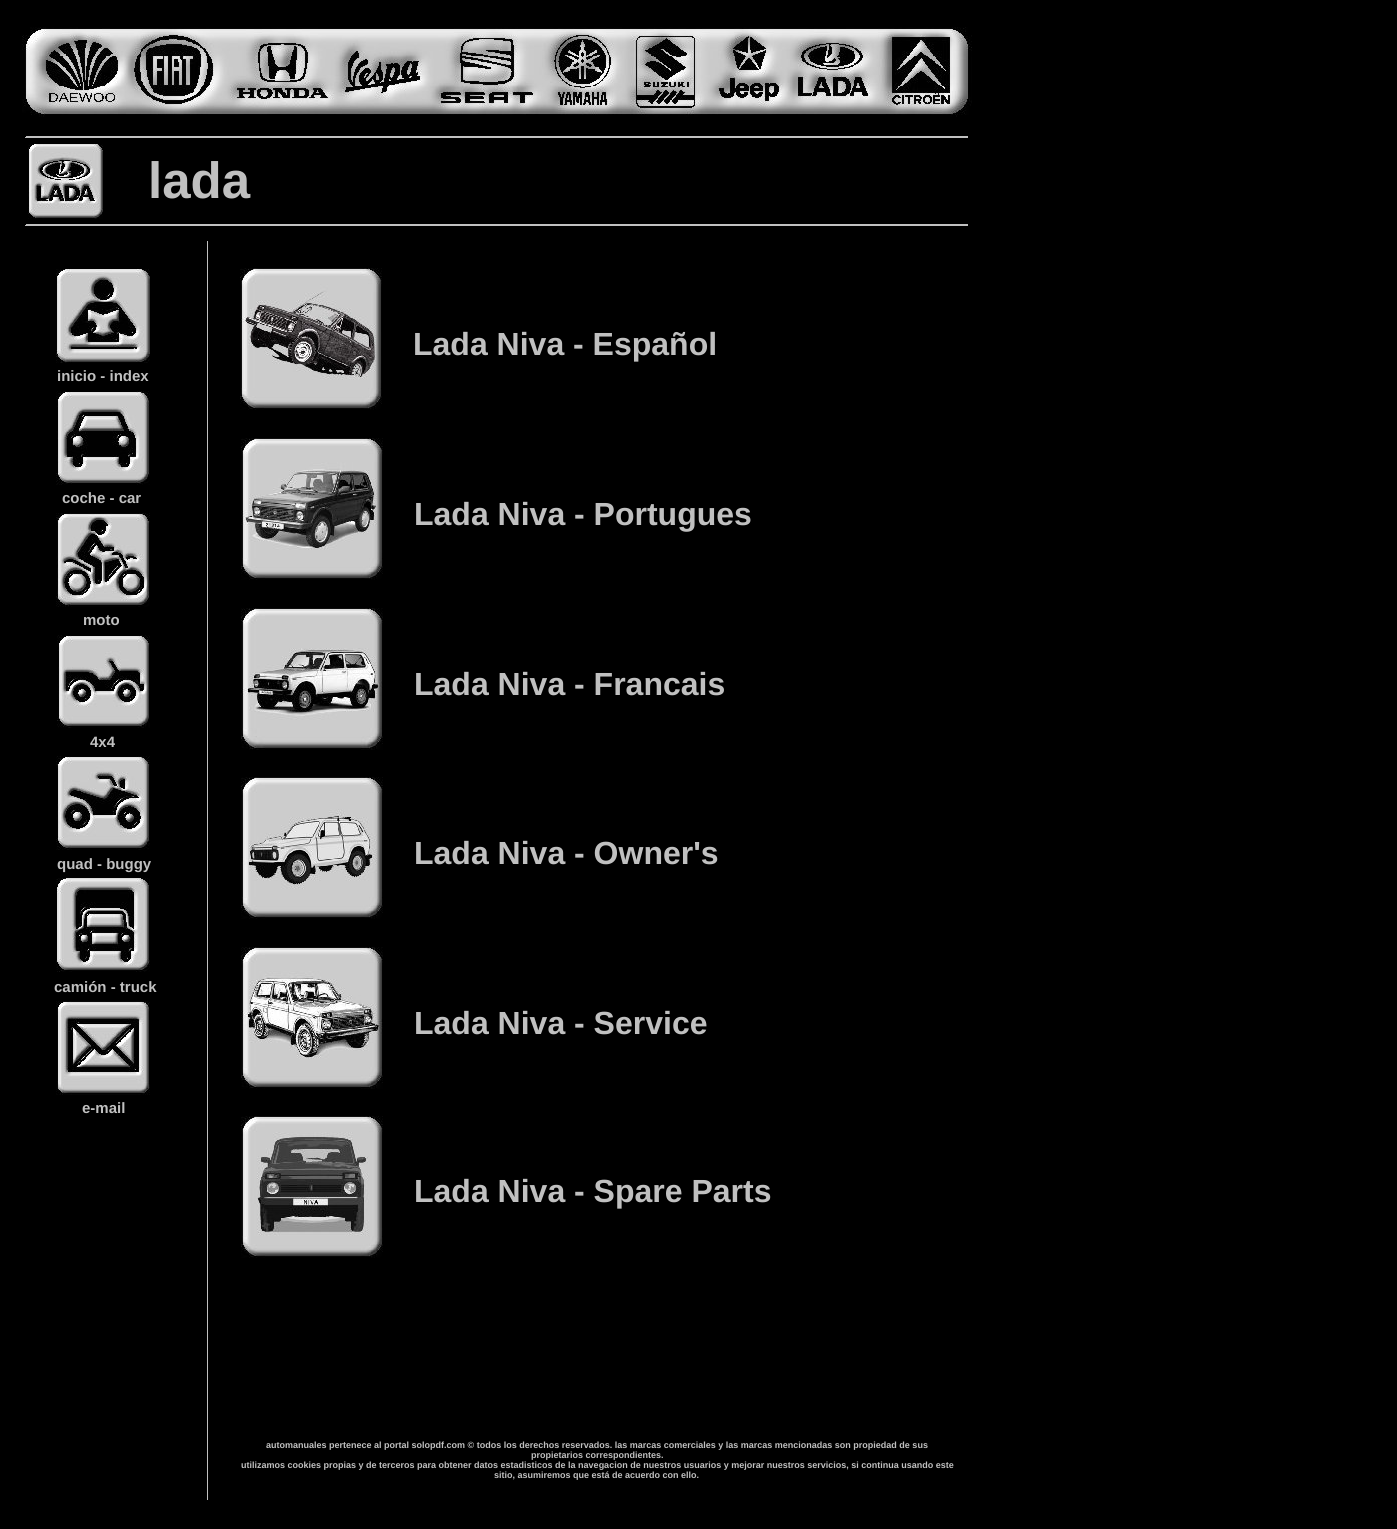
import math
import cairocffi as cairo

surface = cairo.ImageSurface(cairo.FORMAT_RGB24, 1397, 1529)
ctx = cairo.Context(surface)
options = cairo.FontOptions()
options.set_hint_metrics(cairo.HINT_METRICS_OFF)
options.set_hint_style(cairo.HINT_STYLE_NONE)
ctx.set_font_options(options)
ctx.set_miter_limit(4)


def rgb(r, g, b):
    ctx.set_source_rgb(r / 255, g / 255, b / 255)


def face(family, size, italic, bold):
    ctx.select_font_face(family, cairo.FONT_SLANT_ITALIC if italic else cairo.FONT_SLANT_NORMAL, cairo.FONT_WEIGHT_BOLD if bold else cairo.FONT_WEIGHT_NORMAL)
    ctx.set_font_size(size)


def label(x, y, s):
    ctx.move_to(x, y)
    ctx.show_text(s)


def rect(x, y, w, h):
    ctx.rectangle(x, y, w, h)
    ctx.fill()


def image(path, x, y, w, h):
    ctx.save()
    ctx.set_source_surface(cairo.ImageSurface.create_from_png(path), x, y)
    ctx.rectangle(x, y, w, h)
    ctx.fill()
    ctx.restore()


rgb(0, 0, 0)
ctx.paint()
image('image0.png', 22, 27, 950, 90)
image('image1.png', 25, 136, 943, 2)
image('image2.png', 28, 144, 75, 75)
face('Liberation Sans', 51, 0, 1)
rgb(192, 192, 192)
label(148, 198, 'lada')
image('image1.png', 25, 224, 943, 2)
image('image3.png', 56, 269, 94, 94)
rect(207, 241, 1, 1259)
image('image4.png', 240, 268, 142, 142)
face('Liberation Sans', 32, 0, 1)
label(413, 355, 'Lada Niva - Español')
face('Liberation Sans', 15, 0, 1)
label(57, 381, 'inicio - index')
image('image5.png', 56, 391, 94, 94)
image('image6.png', 241, 438, 142, 142)
label(62, 503, 'coche - car')
image('image7.png', 56, 513, 94, 94)
face('Liberation Sans', 32, 0, 1)
label(414, 525, 'Lada Niva - Portugues')
face('Liberation Sans', 15, 0, 1)
label(83, 625, 'moto')
image('image8.png', 241, 608, 142, 142)
image('image9.png', 57, 635, 93, 93)
face('Liberation Sans', 32, 0, 1)
label(414, 695, 'Lada Niva - Francais')
face('Liberation Sans', 15, 0, 1)
label(90, 747, '4x4')
image('image10.png', 56, 756, 94, 94)
image('image11.png', 241, 777, 142, 142)
face('Liberation Sans', 32, 0, 1)
label(414, 864, 'Lada Niva - Owner\'s')
face('Liberation Sans', 15, 0, 1)
label(57, 869, 'quad - buggy')
image('image12.png', 56, 878, 94, 94)
label(54, 992, 'camión - truck')
image('image13.png', 241, 947, 142, 142)
image('image14.png', 56, 1001, 94, 94)
face('Liberation Sans', 32, 0, 1)
label(414, 1034, 'Lada Niva - Service')
face('Liberation Sans', 15, 0, 1)
label(82, 1113, 'e-mail')
image('image15.png', 241, 1116, 142, 142)
face('Liberation Sans', 32, 0, 1)
label(414, 1202, 'Lada Niva - Spare Parts')
face('Liberation Sans', 9, 0, 1)
label(266, 1448, 'automanuales pertenece al portal solopdf.com © todos los derechos reservados. las marcas comerciales y las marcas mencionadas son propiedad de sus')
label(531, 1458, 'propietarios correspondientes.')
label(241, 1468, 'utilizamos cookies propias y de terceros para obtener datos estadisticos de la navegacion de nuestros usuarios y mejorar nuestros servicios, si continua usando este')
label(494, 1478, 'sitio, asumiremos que está de acuerdo con ello.')
surface.write_to_png('render.png')
